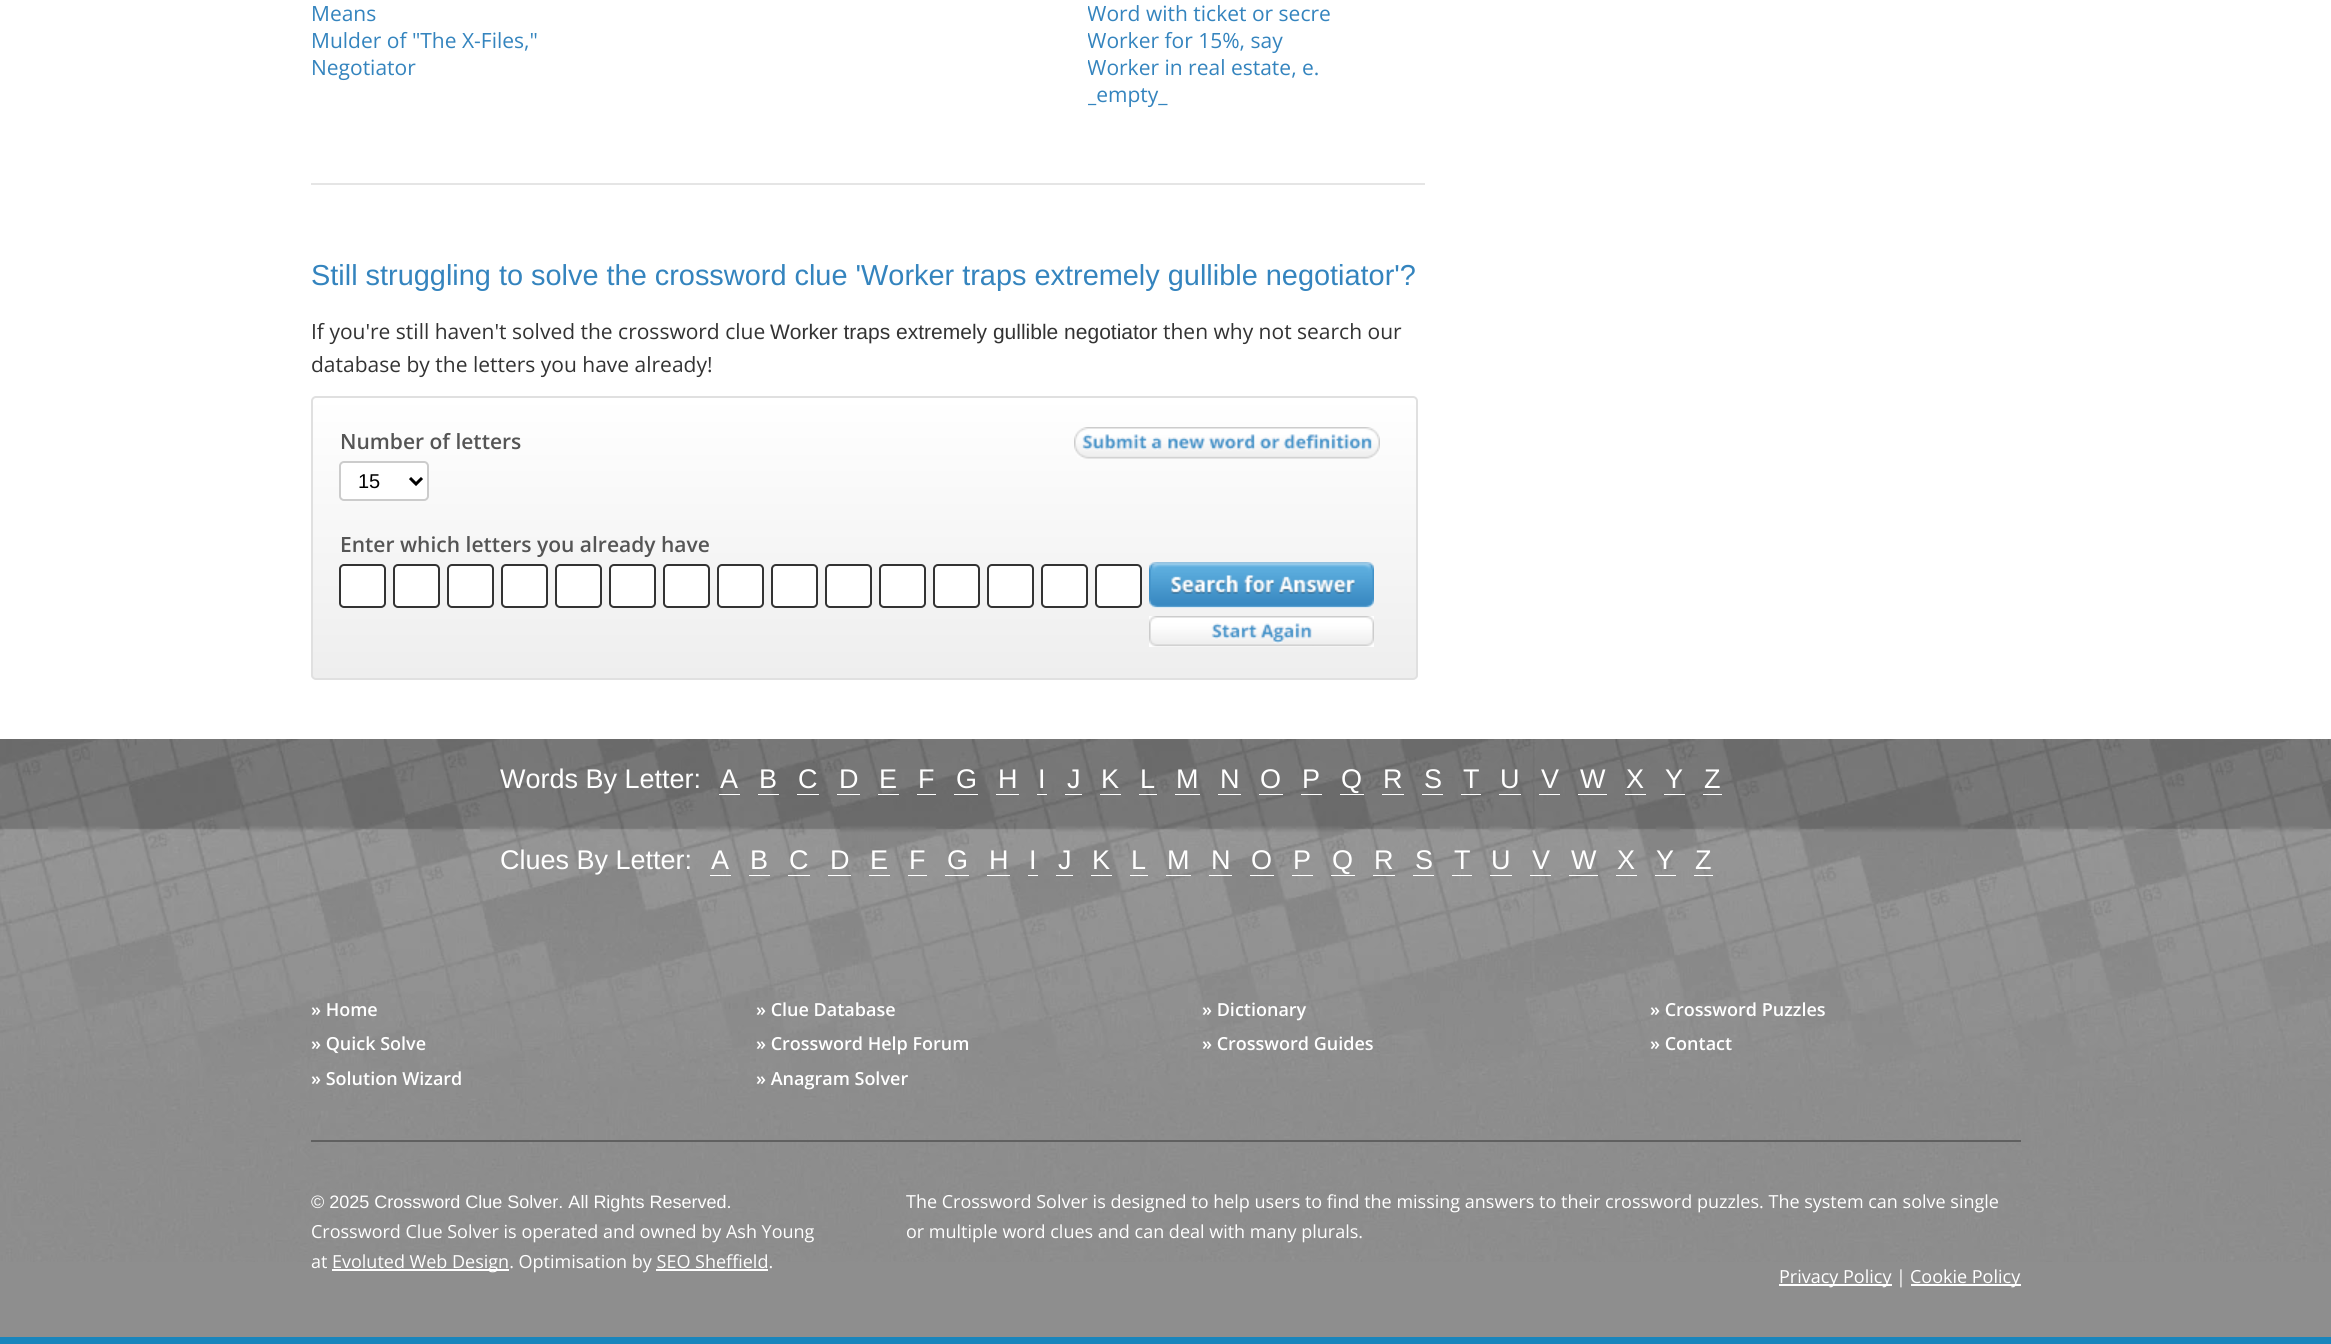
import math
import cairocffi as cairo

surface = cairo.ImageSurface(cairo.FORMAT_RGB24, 2331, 1344)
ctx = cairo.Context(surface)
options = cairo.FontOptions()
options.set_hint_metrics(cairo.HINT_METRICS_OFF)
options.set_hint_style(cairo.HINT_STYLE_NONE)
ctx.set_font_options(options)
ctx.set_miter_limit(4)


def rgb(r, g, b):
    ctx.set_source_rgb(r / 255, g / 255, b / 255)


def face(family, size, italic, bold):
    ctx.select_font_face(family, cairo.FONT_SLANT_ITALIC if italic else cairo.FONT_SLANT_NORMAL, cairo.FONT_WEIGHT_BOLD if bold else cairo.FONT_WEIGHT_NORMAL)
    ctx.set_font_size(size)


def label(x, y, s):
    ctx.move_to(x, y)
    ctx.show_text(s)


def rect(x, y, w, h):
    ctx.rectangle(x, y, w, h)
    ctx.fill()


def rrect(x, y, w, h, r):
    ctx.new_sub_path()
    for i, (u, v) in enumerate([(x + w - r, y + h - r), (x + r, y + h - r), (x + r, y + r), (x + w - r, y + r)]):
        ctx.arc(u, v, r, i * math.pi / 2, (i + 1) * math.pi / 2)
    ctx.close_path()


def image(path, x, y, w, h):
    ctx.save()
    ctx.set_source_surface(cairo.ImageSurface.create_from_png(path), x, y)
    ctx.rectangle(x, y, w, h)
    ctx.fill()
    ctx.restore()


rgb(255, 255, 255)
ctx.paint()
gradient = cairo.LinearGradient(1165, -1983, 1166, 1344)
gradient.add_color_stop_rgba(0, 0.122, 0.635, 0.898, 1)
gradient.add_color_stop_rgba(1, 0.098, 0.522, 0.737, 1)
ctx.set_source(gradient)
rect(0, 1337, 2331, 7)
face('Open Sans', 21, 0, 0)
rgb(52, 132, 190)
label(311, 21, 'Means')
label(311, 48, 'Mulder of "The X-Files,"')
label(311, 75, 'Negotiator')
ctx.save()
ctx.rectangle(1088, 0, 337, 108)
ctx.clip()
label(1087, 21, 'Word with ticket or secre')
label(1087, 48, 'Worker for 15%, say')
label(1087, 75, 'Worker in real estate, e.')
label(1087, 102, '_empty_')
ctx.restore()
rgb(229, 229, 229)
rect(311, 183, 1114, 2)
face('Liberation Sans', 28.9, 0, 0)
rgb(52, 132, 190)
label(311, 285, 'Still struggling to solve the crossword clue \'Worker traps extremely gullible negotiator\'?')
face('Open Sans', 21, 0, 0)
rgb(51, 51, 51)
label(311, 339, 'If you\'re still haven\'t solved the crossword clue')
face('Liberation Sans', 21, 0, 0)
label(770, 339, 'Worker traps extremely gullible negotiator')
face('Open Sans', 21, 0, 0)
label(1163, 339, 'then why not search our')
label(311, 372, 'database by the letters you have already!')
ctx.save()
rrect(311, 396, 1107, 284, 5)
ctx.clip()
gradient = cairo.LinearGradient(864, 397, 864, 678)
gradient.add_color_stop_rgba(0, 1, 1, 1, 1)
gradient.add_color_stop_rgba(1, 0.933, 0.933, 0.933, 1)
ctx.set_source(gradient)
rect(311, 398, 1107, 280)
ctx.restore()
rrect(312, 397, 1105, 282, 4)
rgb(224, 224, 224)
ctx.stroke()
face('Open Sans SemiBold', 21, 0, 0)
rgb(85, 85, 85)
label(340, 449, 'Number of letters')
rgb(255, 255, 255)
rrect(340, 462, 88, 38, 4)
ctx.fill_preserve()
rgb(204, 204, 204)
ctx.stroke()
ctx.new_path()
ctx.move_to(410, 478)
ctx.line_to(416, 484)
ctx.line_to(422, 478)
rgb(0, 0, 0)
ctx.set_line_width(3)
ctx.stroke()
face('Liberation Sans', 20, 0, 0)
label(358, 488, '15')
image('image0.png', 1074, 427, 306, 32)
face('Open Sans SemiBold', 21, 0, 0)
rgb(85, 85, 85)
label(340, 552, 'Enter which letters you already have')
rgb(255, 255, 255)
rrect(340, 565, 45, 42, 4)
ctx.fill_preserve()
rgb(51, 51, 51)
ctx.set_line_width(2)
ctx.stroke()
rgb(255, 255, 255)
rrect(394, 565, 45, 42, 4)
ctx.fill_preserve()
rgb(51, 51, 51)
ctx.stroke()
rgb(255, 255, 255)
rrect(448, 565, 45, 42, 4)
ctx.fill_preserve()
rgb(51, 51, 51)
ctx.stroke()
rgb(255, 255, 255)
rrect(502, 565, 45, 42, 4)
ctx.fill_preserve()
rgb(51, 51, 51)
ctx.stroke()
rgb(255, 255, 255)
rrect(556, 565, 45, 42, 4)
ctx.fill_preserve()
rgb(51, 51, 51)
ctx.stroke()
rgb(255, 255, 255)
rrect(610, 565, 45, 42, 4)
ctx.fill_preserve()
rgb(51, 51, 51)
ctx.stroke()
rgb(255, 255, 255)
rrect(664, 565, 45, 42, 4)
ctx.fill_preserve()
rgb(51, 51, 51)
ctx.stroke()
rgb(255, 255, 255)
rrect(718, 565, 45, 42, 4)
ctx.fill_preserve()
rgb(51, 51, 51)
ctx.stroke()
rgb(255, 255, 255)
rrect(772, 565, 45, 42, 4)
ctx.fill_preserve()
rgb(51, 51, 51)
ctx.stroke()
rgb(255, 255, 255)
rrect(826, 565, 45, 42, 4)
ctx.fill_preserve()
rgb(51, 51, 51)
ctx.stroke()
rgb(255, 255, 255)
rrect(880, 565, 45, 42, 4)
ctx.fill_preserve()
rgb(51, 51, 51)
ctx.stroke()
rgb(255, 255, 255)
rrect(934, 565, 45, 42, 4)
ctx.fill_preserve()
rgb(51, 51, 51)
ctx.stroke()
rgb(255, 255, 255)
rrect(988, 565, 45, 42, 4)
ctx.fill_preserve()
rgb(51, 51, 51)
ctx.stroke()
rgb(255, 255, 255)
rrect(1042, 565, 45, 42, 4)
ctx.fill_preserve()
rgb(51, 51, 51)
ctx.stroke()
rgb(255, 255, 255)
rrect(1096, 565, 45, 42, 4)
ctx.fill_preserve()
rgb(51, 51, 51)
ctx.stroke()
image('image1.png', 1149, 562, 225, 46)
image('image2.png', 1149, 616, 225, 31)
rgb(142, 142, 142)
rect(0, 1262, 2331, 75)
image('image3.png', 0, 739, 2331, 523)
face('Liberation Sans', 27, 0, 0)
rgb(255, 255, 255)
label(500, 788, 'Words By Letter:')
rect(719, 794, 21, 1)
label(720, 788, 'A')
rect(758, 794, 21, 1)
label(759, 788, 'B')
rect(797, 794, 22, 1)
label(798, 788, 'C')
rect(837, 794, 23, 1)
label(839, 788, 'D')
rect(878, 794, 21, 1)
label(879, 788, 'E')
rect(917, 794, 19, 1)
label(918, 788, 'F')
rect(954, 794, 24, 1)
label(956, 788, 'G')
rect(996, 794, 23, 1)
label(998, 788, 'H')
rect(1037, 794, 10, 1)
label(1038, 788, 'I')
rect(1065, 794, 17, 1)
label(1067, 788, 'J')
rect(1100, 794, 21, 1)
label(1101, 788, 'K')
rect(1139, 794, 18, 1)
label(1140, 788, 'L')
rect(1175, 794, 25, 1)
label(1176, 788, 'M')
rect(1218, 794, 23, 1)
label(1220, 788, 'N')
rect(1259, 794, 24, 1)
label(1260, 788, 'O')
rect(1301, 794, 21, 1)
label(1302, 788, 'P')
rect(1340, 794, 24, 1)
label(1341, 788, 'Q')
rect(1382, 794, 22, 1)
label(1383, 788, 'R')
rect(1422, 794, 21, 1)
label(1424, 788, 'S')
rect(1461, 794, 20, 1)
label(1463, 788, 'T')
rect(1499, 794, 22, 1)
label(1500, 788, 'U')
rect(1539, 794, 21, 1)
label(1541, 788, 'V')
rect(1578, 794, 29, 1)
label(1580, 788, 'W')
rect(1625, 794, 21, 1)
label(1626, 788, 'X')
rect(1664, 794, 21, 1)
label(1665, 788, 'Y')
rect(1703, 794, 19, 1)
label(1704, 788, 'Z')
label(500, 869, 'Clues By Letter:')
rect(710, 875, 21, 1)
label(711, 869, 'A')
rect(749, 875, 21, 1)
label(750, 869, 'B')
rect(788, 875, 22, 1)
label(789, 869, 'C')
rect(828, 875, 23, 1)
label(830, 869, 'D')
rect(869, 875, 21, 1)
label(870, 869, 'E')
rect(908, 875, 19, 1)
label(909, 869, 'F')
rect(945, 875, 24, 1)
label(947, 869, 'G')
rect(987, 875, 23, 1)
label(989, 869, 'H')
rect(1028, 875, 10, 1)
label(1029, 869, 'I')
rect(1056, 875, 17, 1)
label(1058, 869, 'J')
rect(1091, 875, 21, 1)
label(1092, 869, 'K')
rect(1130, 875, 18, 1)
label(1131, 869, 'L')
rect(1166, 875, 25, 1)
label(1167, 869, 'M')
rect(1209, 875, 23, 1)
label(1211, 869, 'N')
rect(1250, 875, 24, 1)
label(1251, 869, 'O')
rect(1292, 875, 21, 1)
label(1293, 869, 'P')
rect(1331, 875, 24, 1)
label(1332, 869, 'Q')
rect(1373, 875, 22, 1)
label(1374, 869, 'R')
rect(1413, 875, 21, 1)
label(1415, 869, 'S')
rect(1452, 875, 20, 1)
label(1454, 869, 'T')
rect(1490, 875, 22, 1)
label(1491, 869, 'U')
rect(1530, 875, 21, 1)
label(1532, 869, 'V')
rect(1569, 875, 29, 1)
label(1571, 869, 'W')
rect(1616, 875, 21, 1)
label(1617, 869, 'X')
rect(1655, 875, 21, 1)
label(1656, 869, 'Y')
rect(1694, 875, 19, 1)
label(1695, 869, 'Z')
face('Open Sans SemiBold', 18, 0, 0)
label(311, 1016, '» Home')
label(311, 1050, '» Quick Solve')
label(311, 1085, '» Solution Wizard')
label(756, 1016, '» Clue Database')
label(756, 1050, '» Crossword Help Forum')
label(756, 1085, '» Anagram Solver')
label(1202, 1016, '» Dictionary')
label(1202, 1050, '» Crossword Guides')
label(1650, 1016, '» Crossword Puzzles')
label(1650, 1050, '» Contact')
rgb(96, 96, 96)
rect(311, 1140, 1710, 2)
ctx.save()
ctx.rectangle(311, 1187, 519, 105)
ctx.clip()
face('Liberation Sans', 18, 0, 0)
rgb(255, 255, 255)
label(311, 1208, '© 2025 Crossword Clue Solver. All Rights Reserved.')
ctx.restore()
face('Open Sans', 18, 0, 0)
rgb(255, 255, 255)
label(311, 1238, 'Crossword Clue Solver is operated and owned by Ash Young')
label(311, 1268, 'at')
rect(332, 1269, 177, 2)
label(332, 1268, 'Evoluted Web Design. Optimisation by SEO Sheffield.')
rect(656, 1269, 112, 2)
label(906, 1208, 'The Crossword Solver is designed to help users to find the missing answers to their crossword puzzles. The system can solve single')
label(906, 1238, 'or multiple word clues and can deal with many plurals.')
rect(1779, 1284, 113, 2)
label(1779, 1283, 'Privacy Policy |')
rect(1911, 1284, 110, 2)
label(1910, 1283, 'Cookie Policy')
surface.write_to_png('render.png')
